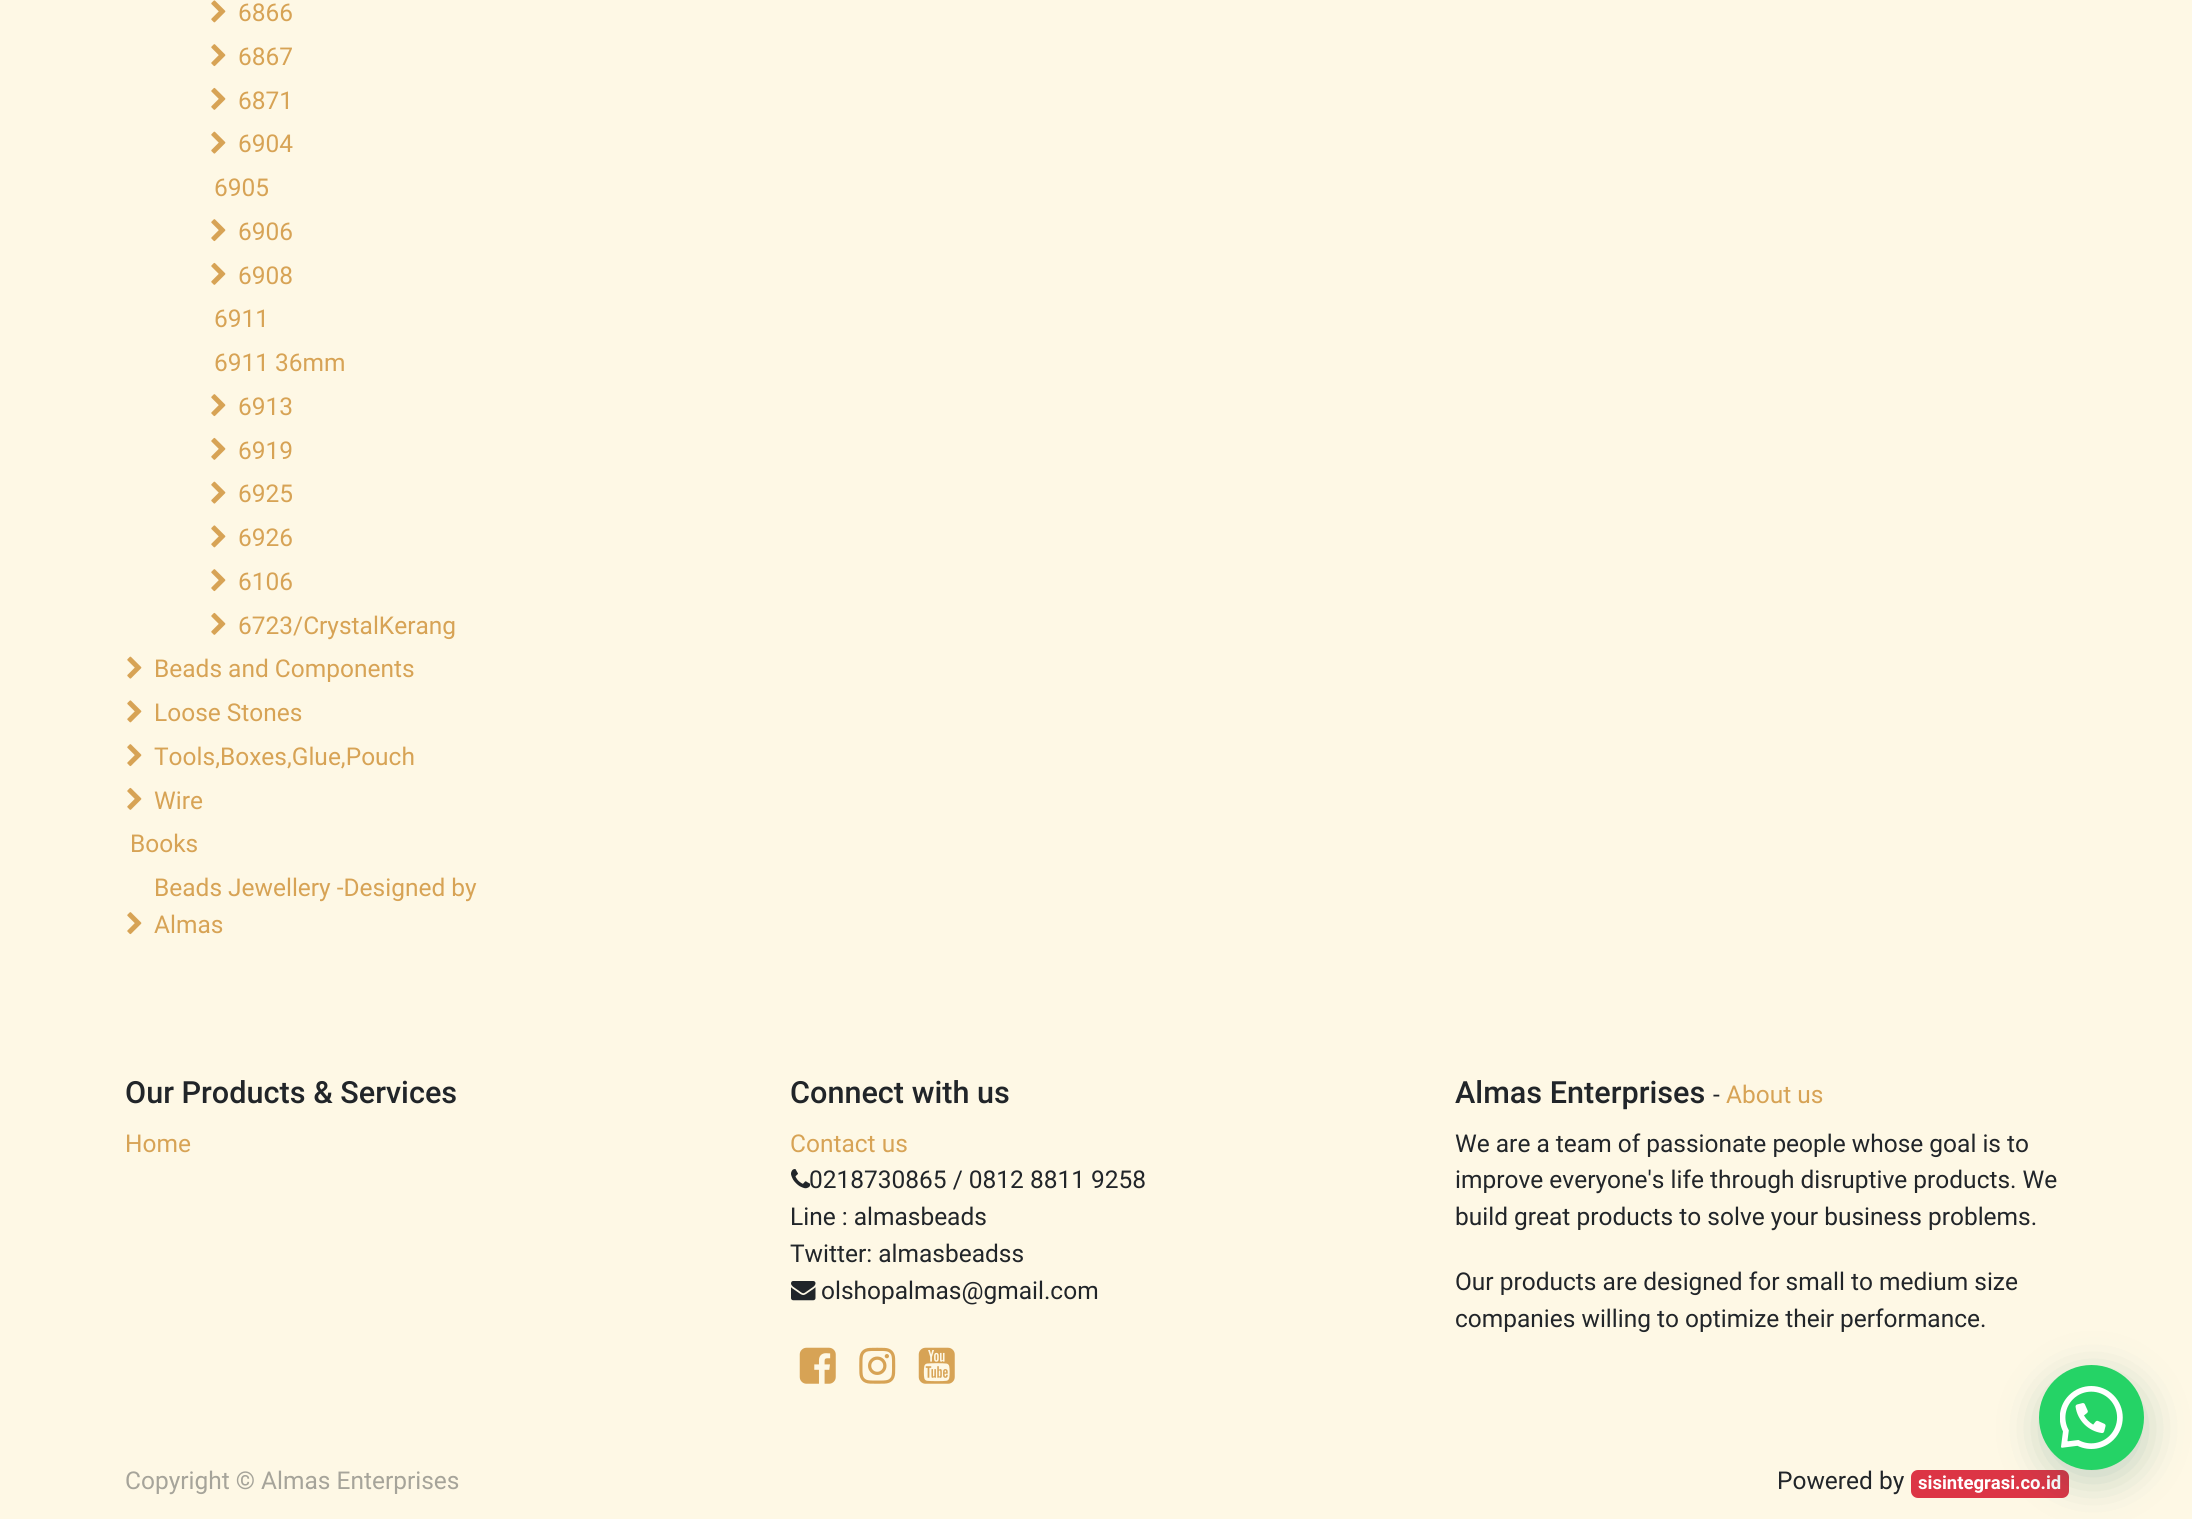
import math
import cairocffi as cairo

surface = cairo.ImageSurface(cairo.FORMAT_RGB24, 2192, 1519)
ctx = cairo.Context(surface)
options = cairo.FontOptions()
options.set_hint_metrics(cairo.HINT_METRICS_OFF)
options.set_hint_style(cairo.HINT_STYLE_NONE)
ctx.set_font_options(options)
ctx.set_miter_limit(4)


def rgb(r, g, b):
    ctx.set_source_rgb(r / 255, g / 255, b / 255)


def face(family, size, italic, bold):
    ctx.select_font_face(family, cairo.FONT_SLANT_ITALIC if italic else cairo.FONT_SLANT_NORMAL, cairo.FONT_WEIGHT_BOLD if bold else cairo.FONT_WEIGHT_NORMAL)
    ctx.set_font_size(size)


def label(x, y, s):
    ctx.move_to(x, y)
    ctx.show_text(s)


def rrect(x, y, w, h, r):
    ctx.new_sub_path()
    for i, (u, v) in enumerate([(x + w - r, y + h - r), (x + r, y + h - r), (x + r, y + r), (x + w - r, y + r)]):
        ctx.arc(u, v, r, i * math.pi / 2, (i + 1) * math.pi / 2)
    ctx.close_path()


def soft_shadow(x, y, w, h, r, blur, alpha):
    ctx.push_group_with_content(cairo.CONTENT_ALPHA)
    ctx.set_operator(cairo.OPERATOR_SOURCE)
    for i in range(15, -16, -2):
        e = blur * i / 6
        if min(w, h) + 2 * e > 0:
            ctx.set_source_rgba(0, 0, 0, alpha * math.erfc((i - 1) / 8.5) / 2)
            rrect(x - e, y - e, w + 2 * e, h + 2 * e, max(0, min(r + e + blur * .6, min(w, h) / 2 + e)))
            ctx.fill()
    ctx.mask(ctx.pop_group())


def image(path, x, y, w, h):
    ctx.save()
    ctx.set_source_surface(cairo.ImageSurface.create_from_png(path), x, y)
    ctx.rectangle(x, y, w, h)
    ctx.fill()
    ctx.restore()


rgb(254, 248, 229)
ctx.paint()
image('image0.png', 211, 0, 15, 23)
face('Roboto', 24.5, 0, 0)
rgb(215, 163, 85)
label(238, 21, '6866')
image('image1.png', 211, 44, 15, 23)
label(238, 65, '6867')
image('image2.png', 211, 87, 15, 23)
label(238, 109, '6871')
image('image3.png', 211, 131, 15, 23)
label(238, 152, '6904')
label(214, 196, '6905')
image('image1.png', 211, 219, 15, 23)
label(238, 240, '6906')
image('image2.png', 211, 262, 15, 23)
label(238, 284, '6908')
label(214, 327, '6911')
label(214, 371, '6911 36mm')
image('image1.png', 211, 394, 15, 23)
label(238, 415, '6913')
image('image2.png', 211, 437, 15, 23)
label(238, 459, '6919')
image('image3.png', 211, 481, 15, 23)
label(238, 502, '6925')
image('image0.png', 211, 525, 15, 23)
label(238, 546, '6926')
image('image1.png', 211, 569, 15, 23)
label(238, 590, '6106')
image('image2.png', 211, 612, 15, 23)
label(238, 634, '6723/CrystalKerang')
image('image3.png', 127, 656, 15, 23)
label(154, 677, 'Beads and Components')
image('image0.png', 127, 700, 15, 23)
label(154, 721, 'Loose Stones')
image('image1.png', 127, 744, 15, 23)
label(154, 765, 'Tools,Boxes,Glue,Pouch')
image('image2.png', 127, 787, 15, 23)
label(154, 809, 'Wire')
label(130, 852, 'Books')
image('image1.png', 127, 912, 15, 23)
label(154, 896, 'Beads Jewellery -Designed by')
label(154, 933, 'Almas')
face('Roboto Medium', 30.6, 0, 0)
rgb(33, 37, 41)
label(125, 1103, 'Our Products & Services')
face('Roboto', 24.5, 0, 0)
rgb(215, 163, 85)
label(125, 1152, 'Home')
face('Roboto Medium', 30.6, 0, 0)
rgb(33, 37, 41)
label(790, 1103, 'Connect with us')
face('Roboto', 24.5, 0, 0)
rgb(215, 163, 85)
label(790, 1152, 'Contact us')
image('image4.png', 791, 1169, 20, 20)
rgb(33, 37, 41)
label(809, 1188, '0218730865 / 0812 8811 9258')
label(790, 1225, 'Line : almasbeads')
label(790, 1262, 'Twitter: almasbeadss')
image('image5.png', 791, 1281, 25, 20)
label(821, 1299, 'olshopalmas@gmail.com')
image('image6.png', 799, 1347, 37, 37)
image('image7.png', 859, 1347, 37, 37)
image('image8.png', 918, 1347, 37, 37)
face('Roboto Medium', 30.6, 0, 0)
label(1455, 1103, 'Almas Enterprises')
face('Roboto', 24.5, 0, 0)
label(1713, 1103, '-')
rgb(215, 163, 85)
label(1726, 1103, 'About us')
rgb(33, 37, 41)
label(1455, 1152, 'We are a team of passionate people whose goal is to')
label(1455, 1188, 'improve everyone\'s life through disruptive products. We')
label(1455, 1225, 'build great products to solve your business problems.')
label(1455, 1290, 'Our products are designed for small to medium size')
label(1455, 1327, 'companies willing to optimize their performance.')
rgb(166, 164, 154)
label(125, 1489, 'Copyright © Almas Enterprises')
rgb(33, 37, 41)
label(1777, 1489, 'Powered by')
rgb(220, 53, 69)
rrect(1911, 1470, 158, 28, 7)
ctx.fill()
face('Roboto', 18.5, 0, 1)
rgb(255, 255, 255)
label(1918, 1489, 'sisintegrasi.co.id')
rgb(7, 94, 84)
soft_shadow(2041, 1376, 105, 105, 52.5, 21, 0.24)
rgb(37, 211, 102)
ctx.arc(2091.5, 1417.5, 52.5, 0, 2 * math.pi)
ctx.fill()
image('image9.png', 2060, 1386, 63, 63)
surface.write_to_png('render.png')
